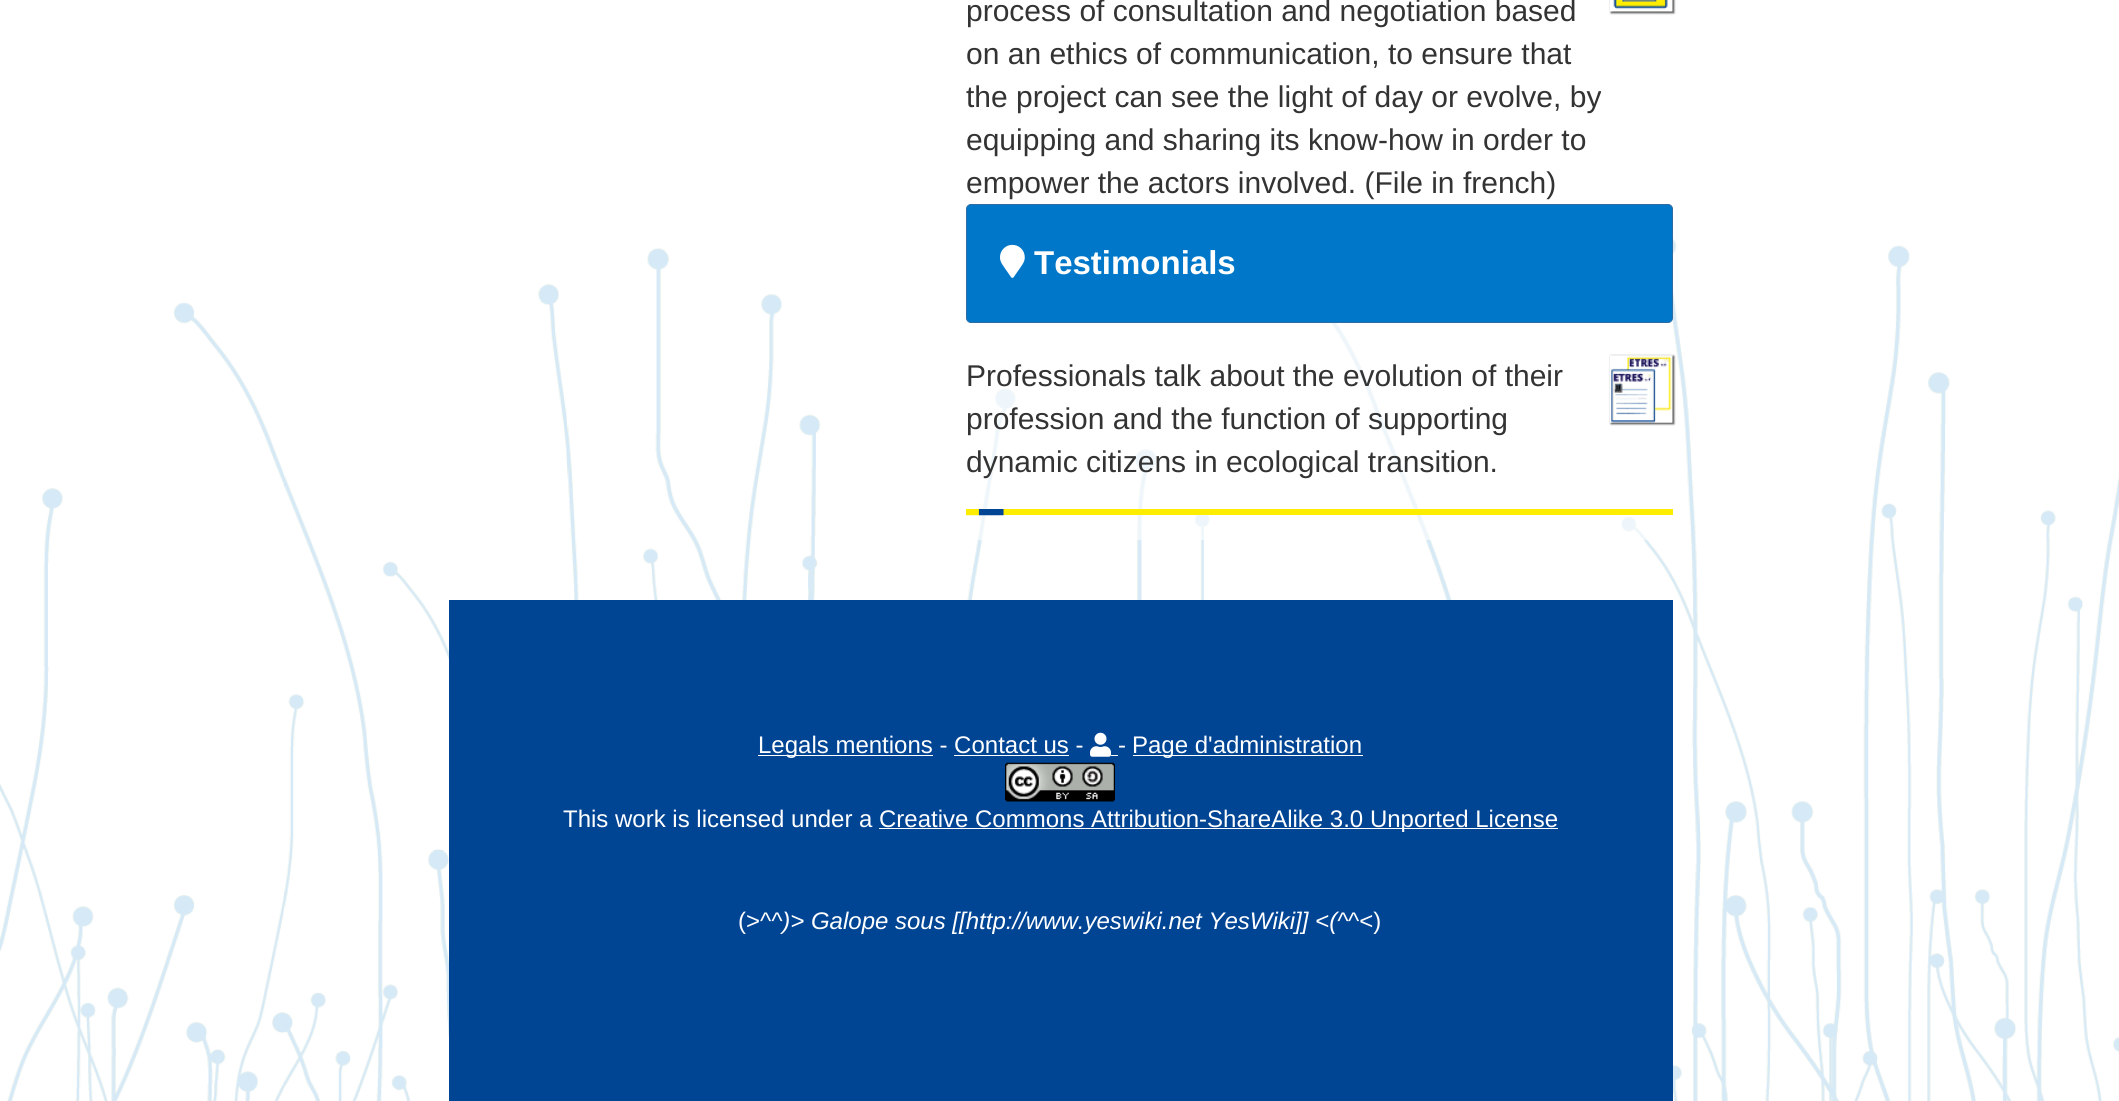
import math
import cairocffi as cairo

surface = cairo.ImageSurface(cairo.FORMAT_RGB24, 2119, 1101)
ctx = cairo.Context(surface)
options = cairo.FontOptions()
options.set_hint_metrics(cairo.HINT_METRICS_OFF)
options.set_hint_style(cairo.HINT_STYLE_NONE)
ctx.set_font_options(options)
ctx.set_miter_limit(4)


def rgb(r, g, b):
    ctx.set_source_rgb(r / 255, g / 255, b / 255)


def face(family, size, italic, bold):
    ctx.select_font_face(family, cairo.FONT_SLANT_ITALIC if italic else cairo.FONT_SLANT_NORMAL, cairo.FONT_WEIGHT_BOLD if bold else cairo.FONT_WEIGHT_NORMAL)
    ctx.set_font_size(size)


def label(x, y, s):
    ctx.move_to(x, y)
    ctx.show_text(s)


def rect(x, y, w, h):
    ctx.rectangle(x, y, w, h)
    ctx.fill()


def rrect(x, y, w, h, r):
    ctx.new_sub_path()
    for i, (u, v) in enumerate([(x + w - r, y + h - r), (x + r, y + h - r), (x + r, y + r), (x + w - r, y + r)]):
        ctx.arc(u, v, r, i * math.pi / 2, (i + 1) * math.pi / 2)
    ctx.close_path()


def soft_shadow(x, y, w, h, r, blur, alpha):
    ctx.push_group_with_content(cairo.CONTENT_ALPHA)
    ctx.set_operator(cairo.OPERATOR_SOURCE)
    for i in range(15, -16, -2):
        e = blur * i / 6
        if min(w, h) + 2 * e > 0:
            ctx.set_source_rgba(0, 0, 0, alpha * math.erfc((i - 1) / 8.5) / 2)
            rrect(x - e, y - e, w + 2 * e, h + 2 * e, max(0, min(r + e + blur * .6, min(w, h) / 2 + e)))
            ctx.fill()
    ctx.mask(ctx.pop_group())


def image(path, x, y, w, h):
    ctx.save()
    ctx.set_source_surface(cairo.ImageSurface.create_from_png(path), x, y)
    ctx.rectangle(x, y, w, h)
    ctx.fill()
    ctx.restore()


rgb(255, 255, 255)
ctx.paint()
image('image0.png', 0, 235, 2119, 866)
ctx.set_source_rgba(1, 1, 1, 0.6)
rect(977, 235, 696, 305)
face('Liberation Sans', 30, 0, 0)
rgb(51, 51, 51)
label(966, 21, 'process of consultation and negotiation based')
rgb(68, 68, 68)
soft_shadow(1611, -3, 63, 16, 0, 1, 1)
image('image1.png', 1610, 0, 63, 12)
rgb(51, 51, 51)
label(966, 64, 'on an ethics of communication, to ensure that')
label(966, 107, 'the project can see the light of day or evolve, by')
label(966, 150, 'equipping and sharing its know-how in order to')
label(966, 193, 'empower the actors involved. (File in french)')
rgb(0, 119, 200)
rrect(966.5, 204.5, 706, 118, 4.5)
ctx.fill_preserve()
rgb(46, 109, 164)
ctx.set_line_width(1)
ctx.stroke()
image('image2.png', 1000, 244, 25, 34)
face('Liberation Sans', 33, 0, 1)
rgb(255, 255, 255)
label(1034, 274, 'Testimonials')
face('Liberation Sans', 30, 0, 0)
rgb(51, 51, 51)
label(966, 386, 'Professionals talk about the evolution of their')
rgb(68, 68, 68)
soft_shadow(1611, 356, 63, 68, 0, 1, 1)
image('image3.png', 1610, 355, 63, 68)
rgb(51, 51, 51)
label(966, 429, 'profession and the function of supporting')
label(966, 472, 'dynamic citizens in ecological transition.')
rgb(255, 237, 0)
rect(966, 509, 707, 6)
image('image4.png', 966, 509, 38, 7)
rgb(0, 68, 148)
rect(449, 600, 1224, 501)
rgb(255, 255, 255)
rect(758, 755, 175, 1)
face('Liberation Sans', 24, 0, 0)
label(758, 753, 'Legals mentions - Contact us -')
image('image5.png', 1090, 732, 21, 25)
rect(1111, 755, 7, 1)
label(1118, 753, '-')
rect(1133, 755, 230, 1)
label(1132, 753, 'Page d\'administration')
rect(954, 755, 115, 1)
image('image6.png', 1005, 762, 110, 40)
label(563, 827, 'This work is licensed under a')
rect(879, 828, 679, 1)
label(879, 827, 'Creative Commons Attribution-ShareAlike 3.0 Unported License')
label(738, 929, '(>^')
face('Liberation Sans', 24, 1, 0)
label(771, 929, '^)> Galope sous [[http://www.yeswiki.net YesWiki]] <(^')
face('Liberation Sans', 24, 0, 0)
label(1348, 929, '^<)')
surface.write_to_png('render.png')
